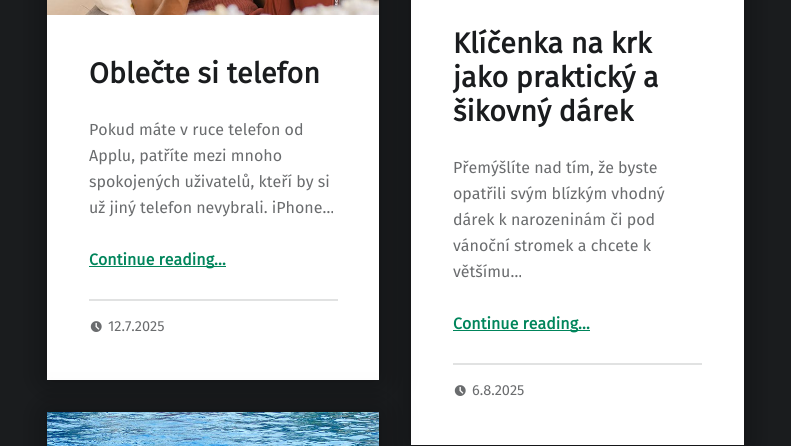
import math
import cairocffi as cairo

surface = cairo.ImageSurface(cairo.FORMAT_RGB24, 791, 446)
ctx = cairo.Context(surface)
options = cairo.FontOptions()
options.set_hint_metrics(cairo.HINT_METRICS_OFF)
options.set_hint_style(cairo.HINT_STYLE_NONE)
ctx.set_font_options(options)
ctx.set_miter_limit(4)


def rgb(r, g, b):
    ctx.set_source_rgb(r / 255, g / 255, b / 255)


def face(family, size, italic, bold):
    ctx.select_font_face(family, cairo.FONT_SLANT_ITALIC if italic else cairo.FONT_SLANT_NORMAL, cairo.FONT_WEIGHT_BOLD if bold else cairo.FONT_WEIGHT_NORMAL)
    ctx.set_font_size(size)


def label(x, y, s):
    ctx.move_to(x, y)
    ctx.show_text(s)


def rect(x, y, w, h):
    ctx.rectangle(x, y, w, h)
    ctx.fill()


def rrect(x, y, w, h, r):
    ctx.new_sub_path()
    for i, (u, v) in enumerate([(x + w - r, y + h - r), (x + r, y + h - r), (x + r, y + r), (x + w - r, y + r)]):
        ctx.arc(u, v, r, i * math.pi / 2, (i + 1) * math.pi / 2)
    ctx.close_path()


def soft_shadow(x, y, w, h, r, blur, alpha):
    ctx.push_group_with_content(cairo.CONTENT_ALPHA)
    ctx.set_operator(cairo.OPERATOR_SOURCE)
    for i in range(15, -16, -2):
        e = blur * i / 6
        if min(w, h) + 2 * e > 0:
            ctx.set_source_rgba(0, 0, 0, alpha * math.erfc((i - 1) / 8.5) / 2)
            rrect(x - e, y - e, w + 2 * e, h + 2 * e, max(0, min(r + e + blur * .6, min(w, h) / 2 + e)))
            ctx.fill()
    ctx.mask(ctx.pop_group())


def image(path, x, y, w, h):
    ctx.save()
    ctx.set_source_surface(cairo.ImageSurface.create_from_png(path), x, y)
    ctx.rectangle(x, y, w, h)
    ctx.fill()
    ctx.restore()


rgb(26, 28, 30)
ctx.paint()
rgb(0, 0, 0)
soft_shadow(411, -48, 333, 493, 0, 16, 0.4)
rgb(255, 255, 255)
rect(411, 0, 333, 445)
rgb(0, 0, 0)
soft_shadow(47, -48, 332, 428, 0, 16, 0.4)
rgb(255, 255, 255)
rect(47, 15, 332, 365)
image('image0.png', 47, 0, 332, 15)
face('Fira Sans', 28.75, 0, 1)
rgb(26, 28, 30)
label(89, 83, 'Oblečte si telefon')
face('Fira Sans', 16, 0, 0)
rgb(106, 108, 110)
label(89, 135, 'Pokud máte v ruce telefon od')
label(89, 161, 'Applu, patříte mezi mnoho')
label(89, 187, 'spokojených uživatelů, kteří by si')
label(89, 213, 'už jiný telefon nevybrali. iPhone…')
rgb(0, 133, 91)
rect(89, 266, 125, 1)
face('Fira Sans', 16, 0, 1)
label(89, 265, 'Continue reading…')
rect(214, 266, 12, 1)
rgb(225, 226, 226)
rect(89, 299, 249, 2)
image('image1.png', 90, 321, 12, 11)
face('Fira Sans', 14.5, 0, 0)
rgb(106, 108, 110)
label(108, 331, '12.7.2025')
face('Fira Sans', 28.75, 0, 1)
rgb(26, 28, 30)
label(453, 53, 'Klíčenka na krk')
label(453, 87, 'jako praktický a')
label(453, 121, 'šikovný dárek')
face('Fira Sans', 16, 0, 0)
rgb(106, 108, 110)
label(453, 173, 'Přemýšlíte nad tím, že byste')
label(453, 199, 'opatřili svým blízkým vhodný')
label(453, 225, 'dárek k narozeninám či pod')
label(453, 251, 'vánoční stromek a chcete k')
label(453, 277, 'většímu…')
rgb(0, 133, 91)
rect(453, 330, 125, 1)
face('Fira Sans', 16, 0, 1)
label(453, 329, 'Continue reading…')
rect(578, 330, 12, 1)
rgb(225, 226, 226)
rect(453, 363, 249, 2)
image('image1.png', 454, 385, 12, 11)
face('Fira Sans', 14.5, 0, 0)
rgb(106, 108, 110)
label(472, 395, '6.8.2025')
rgb(0, 0, 0)
soft_shadow(47, 412, 332, 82, 0, 16, 0.4)
image('image2.png', 47, 412, 332, 34)
surface.write_to_png('render.png')
